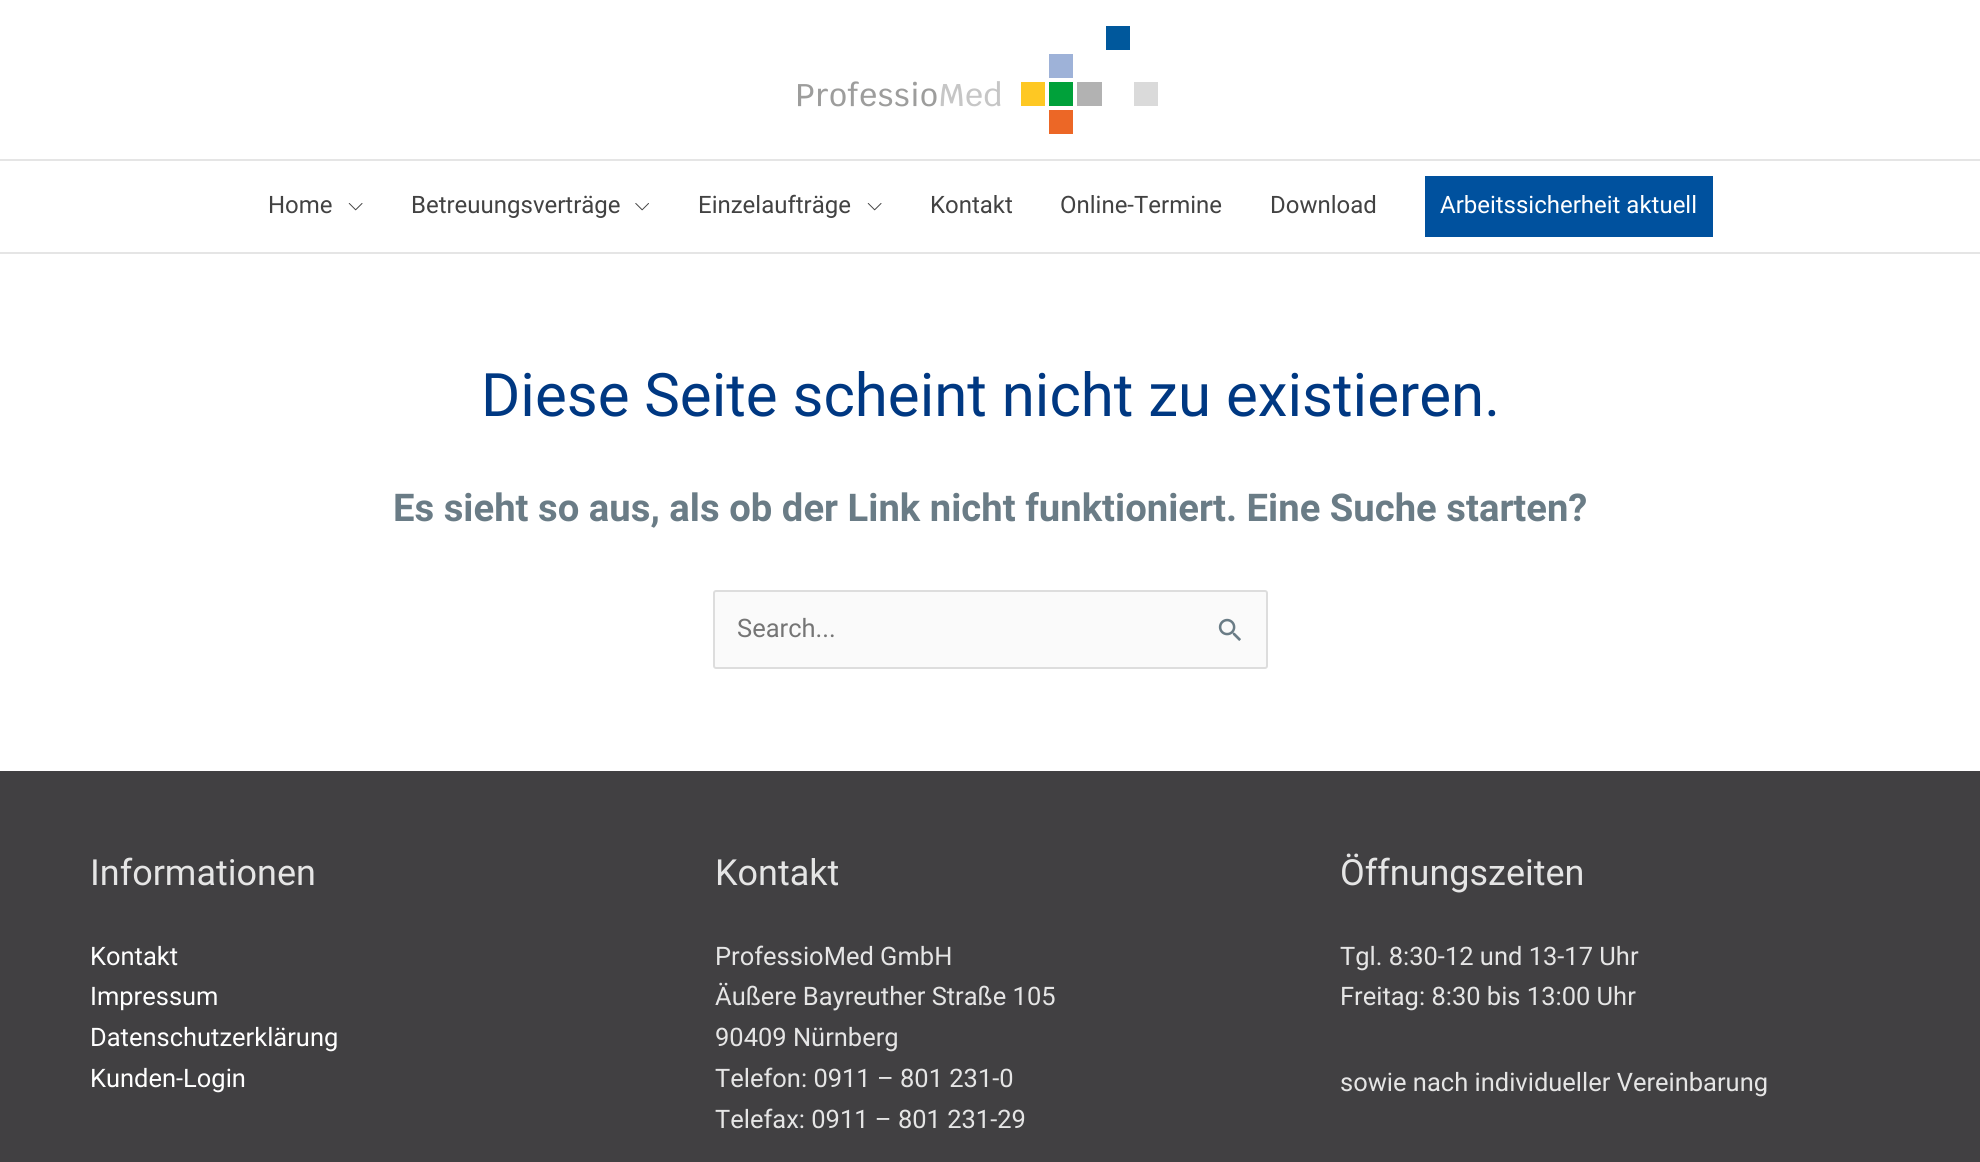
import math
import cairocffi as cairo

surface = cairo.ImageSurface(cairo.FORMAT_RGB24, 1980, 1162)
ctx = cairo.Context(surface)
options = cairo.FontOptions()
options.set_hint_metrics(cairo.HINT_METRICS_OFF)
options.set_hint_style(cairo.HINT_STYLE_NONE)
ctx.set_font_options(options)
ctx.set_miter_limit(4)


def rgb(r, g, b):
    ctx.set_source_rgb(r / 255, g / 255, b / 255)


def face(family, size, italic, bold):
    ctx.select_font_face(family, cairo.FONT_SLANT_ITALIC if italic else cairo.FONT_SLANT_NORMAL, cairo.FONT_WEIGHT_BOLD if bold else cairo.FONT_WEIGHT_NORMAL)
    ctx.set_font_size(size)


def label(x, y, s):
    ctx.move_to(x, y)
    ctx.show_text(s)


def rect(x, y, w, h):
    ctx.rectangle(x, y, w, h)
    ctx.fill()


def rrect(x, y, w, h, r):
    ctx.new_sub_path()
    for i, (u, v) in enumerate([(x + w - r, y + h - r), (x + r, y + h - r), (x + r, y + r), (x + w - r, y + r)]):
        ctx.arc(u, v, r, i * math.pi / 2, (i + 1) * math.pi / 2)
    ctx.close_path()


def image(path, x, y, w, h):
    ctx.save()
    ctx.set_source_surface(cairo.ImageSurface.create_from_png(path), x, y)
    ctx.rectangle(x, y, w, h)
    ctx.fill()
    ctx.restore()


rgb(255, 255, 255)
ctx.paint()
rgb(229, 229, 229)
rect(0, 159, 1980, 2)
image('image0.png', 798, 26, 360, 108)
rect(0, 252, 1980, 2)
face('Roboto', 24, 0, 0)
rgb(66, 66, 66)
label(268, 213, 'Home')
image('image1.png', 348, 203, 15, 8)
label(411, 213, 'Betreuungsverträge')
image('image2.png', 635, 203, 14, 8)
label(698, 213, 'Einzelaufträge')
image('image1.png', 867, 203, 15, 8)
label(930, 213, 'Kontakt')
label(1060, 213, 'Online-Termine')
label(1270, 213, 'Download')
rgb(0, 81, 158)
rect(1425, 176, 288, 61)
rgb(255, 255, 255)
label(1440, 213, 'Arbeitssicherheit aktuell')
face('Roboto', 60, 0, 0)
rgb(0, 56, 130)
label(481, 416, 'Diese Seite scheint nicht zu existieren.')
face('Roboto', 38.25, 0, 1)
rgb(106, 124, 134)
label(393, 521, 'Es sieht so aus, als ob der Link nicht funktioniert. Eine Suche starten?')
rgb(250, 250, 250)
rrect(714, 591, 553, 77, 2)
ctx.fill_preserve()
rgb(221, 221, 221)
ctx.stroke()
face('Roboto', 25.5, 0, 0)
rgb(117, 117, 117)
label(737, 637, 'Search...')
image('image3.png', 1218, 618, 23, 23)
rgb(65, 64, 66)
rect(0, 771, 1980, 391)
face('Roboto', 36, 0, 0)
rgb(229, 229, 229)
label(90, 885, 'Informationen')
face('Roboto', 25.5, 0, 0)
rgb(255, 255, 255)
label(90, 965, 'Kontakt')
label(90, 1005, 'Impressum')
label(90, 1046, 'Datenschutzerklärung')
label(90, 1087, 'Kunden-Login')
face('Roboto', 36, 0, 0)
rgb(229, 229, 229)
label(715, 885, 'Kontakt')
face('Roboto', 25.5, 0, 0)
label(715, 965, 'ProfessioMed GmbH')
label(715, 1005, 'Äußere Bayreuther Straße 105')
label(715, 1046, '90409 Nürnberg')
label(715, 1087, 'Telefon: 0911 – 801 231-0')
label(715, 1128, 'Telefax: 0911 – 801 231-29')
face('Roboto', 36, 0, 0)
label(1340, 885, 'Öffnungszeiten')
face('Roboto', 25.5, 0, 0)
label(1340, 965, 'Tgl. 8:30-12 und 13-17 Uhr')
label(1340, 1005, 'Freitag: 8:30 bis 13:00 Uhr')
label(1340, 1091, 'sowie nach individueller Vereinbarung')
surface.write_to_png('render.png')
